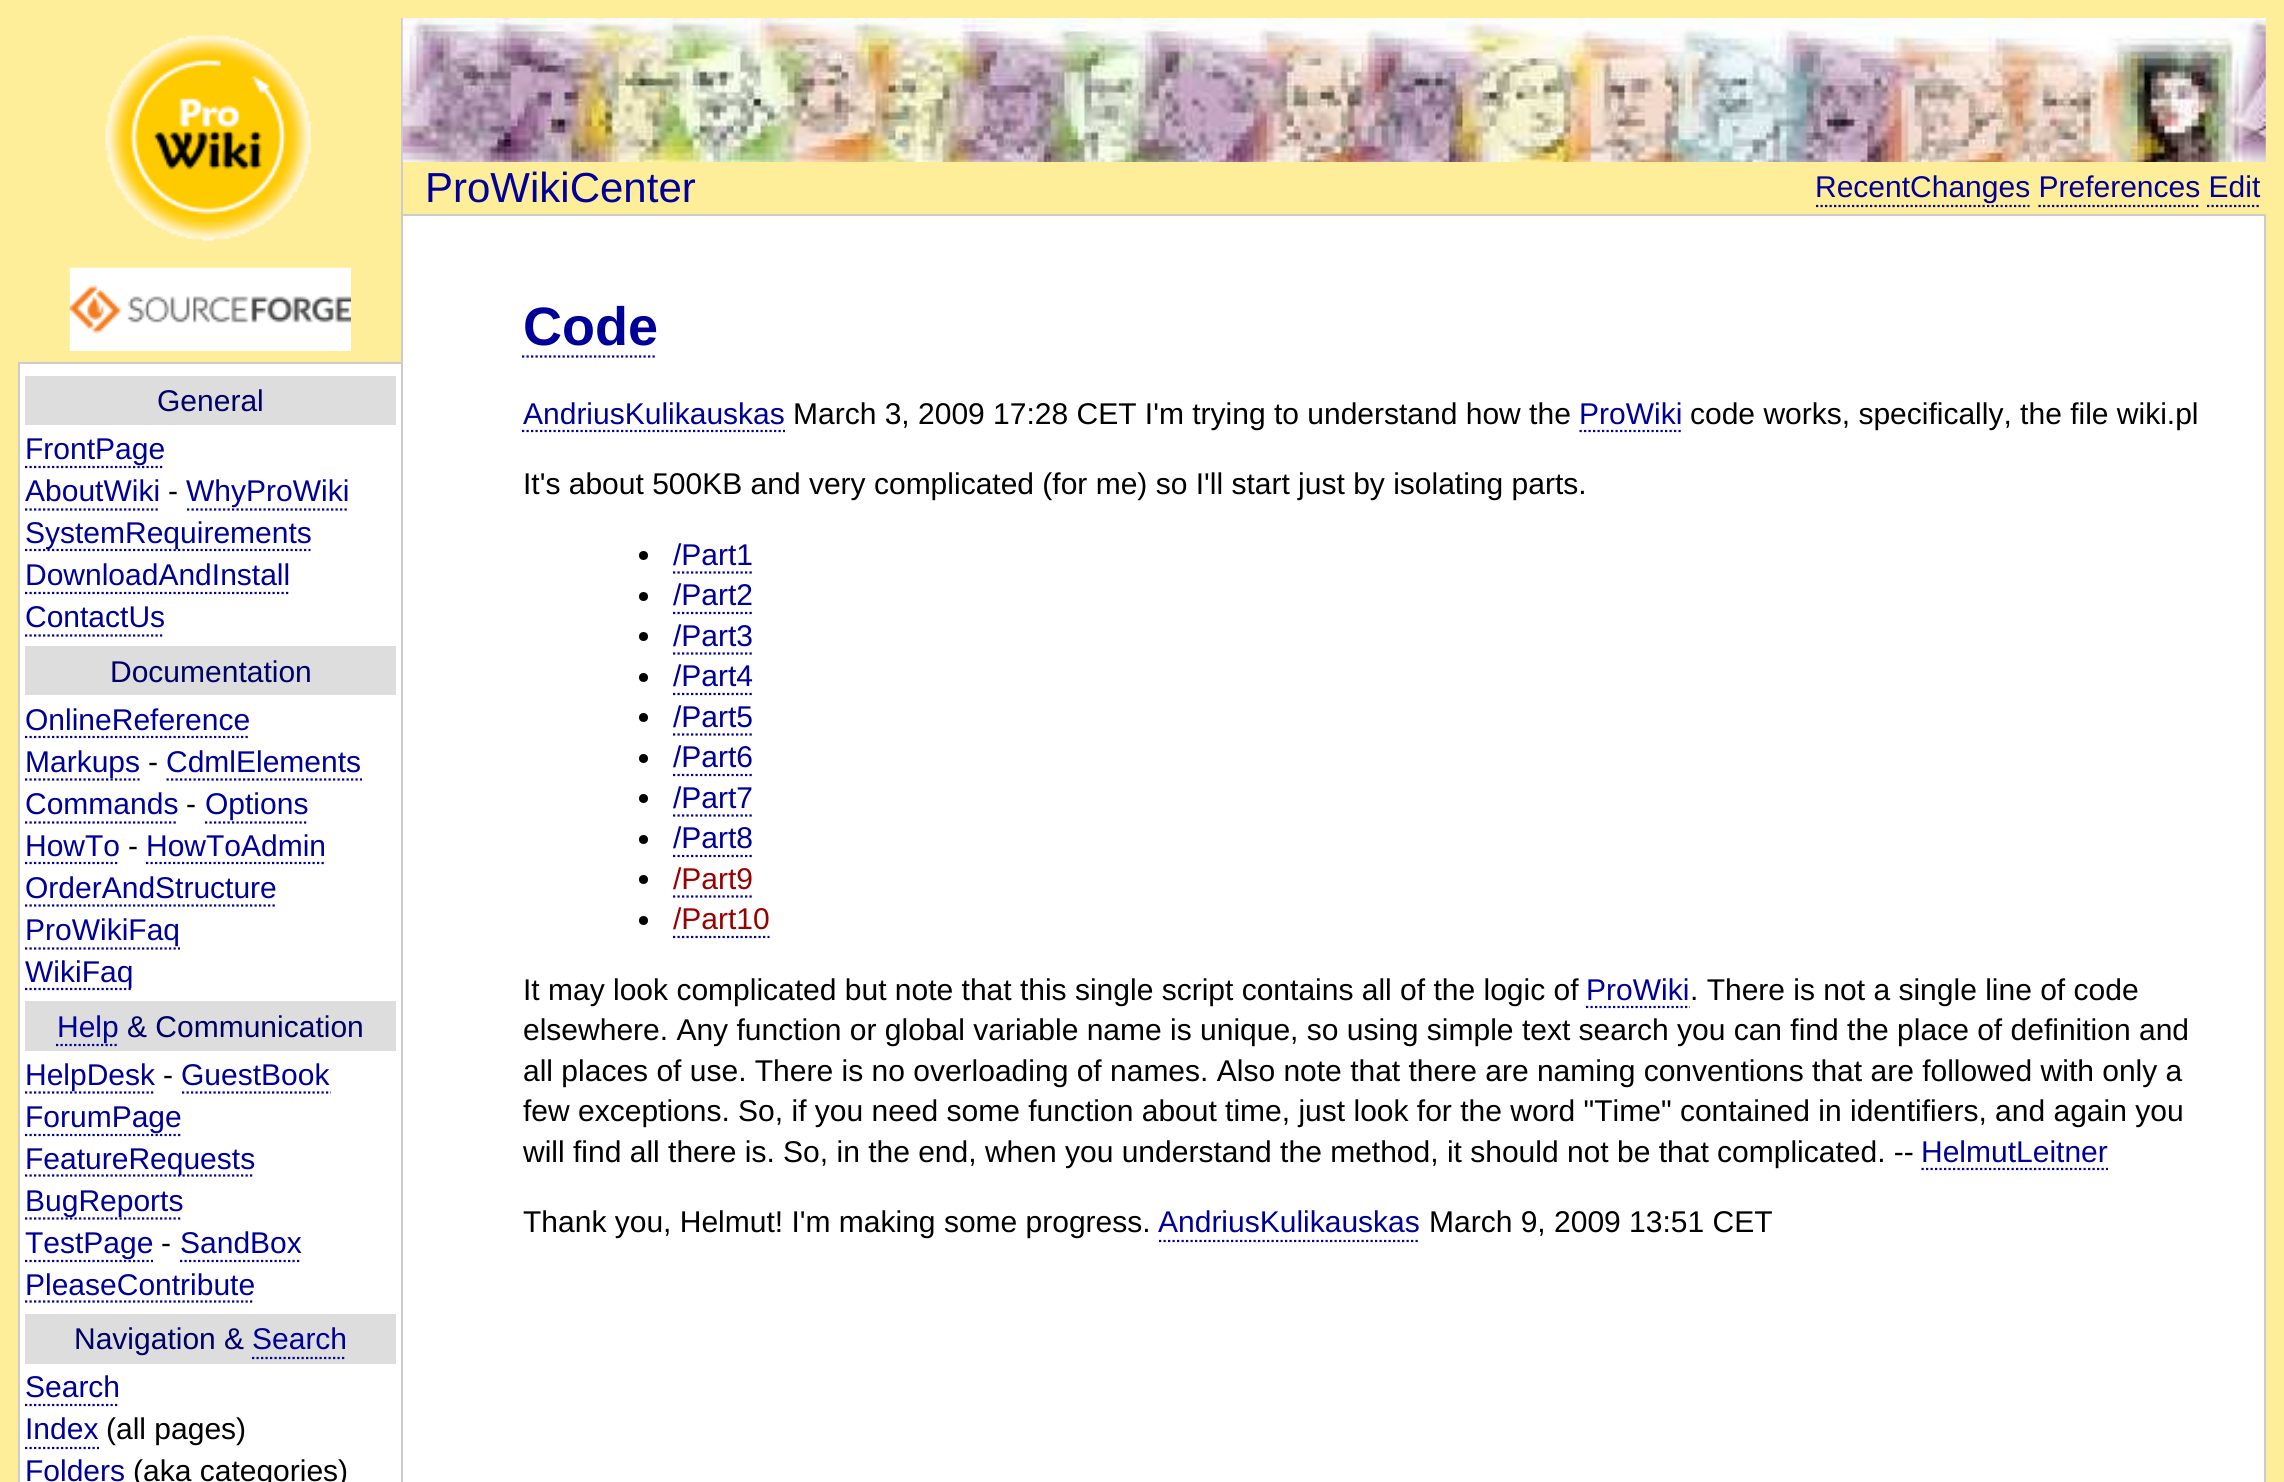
import math
import cairocffi as cairo

surface = cairo.ImageSurface(cairo.FORMAT_RGB24, 2284, 1482)
ctx = cairo.Context(surface)
options = cairo.FontOptions()
options.set_hint_metrics(cairo.HINT_METRICS_OFF)
options.set_hint_style(cairo.HINT_STYLE_NONE)
ctx.set_font_options(options)
ctx.set_miter_limit(4)


def rgb(r, g, b):
    ctx.set_source_rgb(r / 255, g / 255, b / 255)


def face(family, size, italic, bold):
    ctx.select_font_face(family, cairo.FONT_SLANT_ITALIC if italic else cairo.FONT_SLANT_NORMAL, cairo.FONT_WEIGHT_BOLD if bold else cairo.FONT_WEIGHT_NORMAL)
    ctx.set_font_size(size)


def label(x, y, s):
    ctx.move_to(x, y)
    ctx.show_text(s)


def rect(x, y, w, h):
    ctx.rectangle(x, y, w, h)
    ctx.fill()


def image(path, x, y, w, h):
    ctx.save()
    ctx.set_source_surface(cairo.ImageSurface.create_from_png(path), x, y)
    ctx.rectangle(x, y, w, h)
    ctx.fill()
    ctx.restore()


rgb(255, 238, 153)
ctx.paint()
image('image0.png', 105, 35, 207, 207)
image('image1.png', 69, 267, 282, 84)
rgb(255, 255, 255)
rect(20, 364, 381, 1118)
rgb(204, 204, 204)
rect(18, 362, 383, 2)
rect(18, 362, 2, 1120)
rgb(221, 221, 221)
rect(25, 376, 371, 49)
face('Liberation Sans', 30, 0, 0)
rgb(0, 0, 102)
label(157, 411, 'General')
ctx.new_path()
ctx.move_to(25, 467)
ctx.line_to(164, 467)
rgb(0, 0, 153)
ctx.set_line_width(2.2)
ctx.set_dash([2.25, 2.25])
ctx.stroke()
label(25, 459, 'FrontPage')
label(25, 501, 'AboutWiki')
ctx.new_path()
ctx.move_to(25, 509.5)
ctx.line_to(160, 509.5)
ctx.stroke()
rgb(0, 0, 0)
label(168, 501, '-')
rgb(0, 0, 153)
label(186, 501, 'WhyProWiki')
ctx.new_path()
ctx.move_to(187, 509.5)
ctx.line_to(349, 509.5)
ctx.stroke()
ctx.new_path()
ctx.move_to(25, 550)
ctx.line_to(310.5, 550)
ctx.stroke()
label(25, 543, 'SystemRequirements')
label(25, 585, 'DownloadAndInstall')
ctx.new_path()
ctx.move_to(25, 593)
ctx.line_to(290, 593)
ctx.stroke()
label(25, 627, 'ContactUs')
ctx.new_path()
ctx.move_to(25, 635.5)
ctx.line_to(164, 635.5)
ctx.stroke()
rgb(221, 221, 221)
rect(25, 646, 371, 49)
rgb(0, 0, 102)
label(110, 682, 'Documentation')
rgb(0, 0, 153)
label(25, 730, 'OnlineReference')
ctx.new_path()
ctx.move_to(25, 737)
ctx.line_to(250, 737)
ctx.stroke()
ctx.new_path()
ctx.move_to(25, 779.5)
ctx.line_to(139.5, 779.5)
ctx.stroke()
label(25, 772, 'Markups')
rgb(0, 0, 0)
label(148, 772, '-')
rgb(0, 0, 153)
label(166, 772, 'CdmlElements')
ctx.new_path()
ctx.move_to(166.5, 779.5)
ctx.line_to(362, 779.5)
ctx.stroke()
label(25, 814, 'Commands')
ctx.new_path()
ctx.move_to(25, 822.5)
ctx.line_to(178, 822.5)
ctx.stroke()
rgb(0, 0, 0)
label(186, 814, '-')
rgb(0, 0, 153)
label(205, 814, 'Options')
ctx.new_path()
ctx.move_to(205, 822.5)
ctx.line_to(308, 822.5)
ctx.stroke()
label(25, 856, 'HowTo')
ctx.new_path()
ctx.move_to(25, 863)
ctx.line_to(119, 863)
ctx.stroke()
rgb(0, 0, 0)
label(128, 856, '-')
rgb(0, 0, 153)
label(146, 856, 'HowToAdmin')
ctx.new_path()
ctx.move_to(146, 863)
ctx.line_to(326, 863)
ctx.stroke()
label(25, 898, 'OrderAndStructure')
ctx.new_path()
ctx.move_to(25, 905.5)
ctx.line_to(277, 905.5)
ctx.stroke()
label(25, 940, 'ProWikiFaq')
ctx.new_path()
ctx.move_to(25, 948.5)
ctx.line_to(180, 948.5)
ctx.stroke()
ctx.new_path()
ctx.move_to(25, 989)
ctx.line_to(133, 989)
ctx.stroke()
label(25, 982, 'WikiFaq')
rgb(221, 221, 221)
rect(25, 1001, 371, 50)
ctx.new_path()
ctx.move_to(56, 1045)
ctx.line_to(119, 1045)
rgb(0, 0, 153)
ctx.stroke()
label(57, 1037, 'Help')
rgb(0, 0, 102)
label(127, 1037, '& Communication')
ctx.new_path()
ctx.move_to(25, 1092.5)
ctx.line_to(155, 1092.5)
rgb(0, 0, 153)
ctx.stroke()
label(25, 1085, 'HelpDesk')
rgb(0, 0, 0)
label(163, 1085, '-')
rgb(0, 0, 153)
label(181, 1085, 'GuestBook')
ctx.new_path()
ctx.move_to(182, 1092.5)
ctx.line_to(331, 1092.5)
ctx.stroke()
ctx.new_path()
ctx.move_to(25, 1135)
ctx.line_to(182, 1135)
ctx.stroke()
label(25, 1127, 'ForumPage')
ctx.new_path()
ctx.move_to(25, 1175.5)
ctx.line_to(254, 1175.5)
ctx.stroke()
label(25, 1169, 'FeatureRequests')
ctx.new_path()
ctx.move_to(25, 1218.5)
ctx.line_to(182, 1218.5)
ctx.stroke()
label(25, 1211, 'BugReports')
ctx.new_path()
ctx.move_to(25, 1261)
ctx.line_to(153, 1261)
ctx.stroke()
label(25, 1253, 'TestPage')
rgb(0, 0, 0)
label(161, 1253, '-')
rgb(0, 0, 153)
label(180, 1253, 'SandBox')
ctx.new_path()
ctx.move_to(180, 1261)
ctx.line_to(301.5, 1261)
ctx.stroke()
label(25, 1295, 'PleaseContribute')
ctx.new_path()
ctx.move_to(25, 1301.5)
ctx.line_to(254, 1301.5)
ctx.stroke()
rgb(221, 221, 221)
rect(25, 1314, 371, 50)
rgb(0, 0, 102)
label(74, 1349, 'Navigation &')
rgb(0, 0, 153)
label(252, 1349, 'Search')
ctx.new_path()
ctx.move_to(252, 1358)
ctx.line_to(346.5, 1358)
ctx.stroke()
label(25, 1397, 'Search')
ctx.new_path()
ctx.move_to(25, 1405)
ctx.line_to(119, 1405)
ctx.stroke()
label(25, 1439, 'Index')
ctx.new_path()
ctx.move_to(25, 1448)
ctx.line_to(99, 1448)
ctx.stroke()
rgb(0, 0, 0)
label(106, 1439, '(all pages)')
rgb(0, 0, 153)
label(25, 1481, 'Folders')
rgb(0, 0, 0)
label(133, 1481, '(aka categories)')
rgb(204, 204, 204)
rect(401, 18, 2, 1464)
image('image2.png', 402, 18, 1864, 144)
face('Liberation Sans', 42, 0, 0)
rgb(0, 0, 153)
label(425, 202, 'ProWikiCenter')
face('Liberation Sans', 30, 0, 0)
label(1815, 197, 'RecentChanges Preferences Edit')
ctx.new_path()
ctx.move_to(1816, 206)
ctx.line_to(2029.5, 206)
ctx.stroke()
ctx.new_path()
ctx.move_to(2038.5, 206)
ctx.line_to(2200.5, 206)
ctx.stroke()
ctx.new_path()
ctx.move_to(2207, 206)
ctx.line_to(2259, 206)
ctx.stroke()
rgb(255, 255, 255)
rect(403, 216, 1861, 1266)
rgb(204, 204, 204)
rect(403, 214, 1863, 2)
rect(2264, 214, 2, 1268)
face('Liberation Sans', 54, 0, 1)
rgb(0, 0, 153)
label(523, 345, 'Code')
ctx.new_path()
ctx.move_to(522, 356.5)
ctx.line_to(657, 356.5)
ctx.stroke()
face('Liberation Sans', 30, 0, 0)
label(523, 424, 'AndriusKulikauskas')
ctx.new_path()
ctx.move_to(522, 431)
ctx.line_to(785, 431)
ctx.stroke()
rgb(0, 0, 0)
label(793, 424, 'March 3, 2009 17:28 CET I\'m trying to understand how the')
rgb(0, 0, 153)
label(1579, 424, 'ProWiki')
ctx.new_path()
ctx.move_to(1579.5, 431)
ctx.line_to(1683, 431)
ctx.stroke()
rgb(0, 0, 0)
label(1690, 424, 'code works, specifically, the file wiki.pl')
label(523, 494, 'It\'s about 500KB and very complicated (for me) so I\'ll start just by isolating parts.')
ctx.new_path()
ctx.arc(643.5, 555.5, 4.5, 0, 2 * math.pi)
ctx.fill()
rgb(0, 0, 153)
label(673, 565, '/Part1')
ctx.new_path()
ctx.move_to(673, 572.5)
ctx.line_to(754, 572.5)
ctx.stroke()
rgb(0, 0, 0)
ctx.arc(643.5, 596.5, 4.5, 0, 2 * math.pi)
ctx.fill()
rgb(0, 0, 153)
label(673, 605, '/Part2')
ctx.new_path()
ctx.move_to(673, 613)
ctx.line_to(754, 613)
ctx.stroke()
rgb(0, 0, 0)
ctx.arc(643.5, 636.5, 4.5, 0, 2 * math.pi)
ctx.fill()
rgb(0, 0, 153)
label(673, 646, '/Part3')
ctx.new_path()
ctx.move_to(673, 653.5)
ctx.line_to(754, 653.5)
ctx.stroke()
rgb(0, 0, 0)
ctx.arc(643.5, 677.5, 4.5, 0, 2 * math.pi)
ctx.fill()
rgb(0, 0, 153)
label(673, 686, '/Part4')
ctx.new_path()
ctx.move_to(673, 694)
ctx.line_to(754, 694)
ctx.stroke()
rgb(0, 0, 0)
ctx.arc(643.5, 717.5, 4.5, 0, 2 * math.pi)
ctx.fill()
rgb(0, 0, 153)
label(673, 727, '/Part5')
ctx.new_path()
ctx.move_to(673, 734.5)
ctx.line_to(754, 734.5)
ctx.stroke()
rgb(0, 0, 0)
ctx.arc(643.5, 758.5, 4.5, 0, 2 * math.pi)
ctx.fill()
rgb(0, 0, 153)
label(673, 767, '/Part6')
ctx.new_path()
ctx.move_to(673, 775)
ctx.line_to(754, 775)
ctx.stroke()
rgb(0, 0, 0)
ctx.arc(643.5, 798.5, 4.5, 0, 2 * math.pi)
ctx.fill()
rgb(0, 0, 153)
label(673, 808, '/Part7')
ctx.new_path()
ctx.move_to(673, 815.5)
ctx.line_to(754, 815.5)
ctx.stroke()
rgb(0, 0, 0)
ctx.arc(643.5, 839.5, 4.5, 0, 2 * math.pi)
ctx.fill()
rgb(0, 0, 153)
label(673, 848, '/Part8')
ctx.new_path()
ctx.move_to(673, 856)
ctx.line_to(754, 856)
ctx.stroke()
rgb(0, 0, 0)
ctx.arc(643.5, 879.5, 4.5, 0, 2 * math.pi)
ctx.fill()
rgb(153, 0, 0)
label(673, 889, '/Part9')
ctx.new_path()
ctx.move_to(673, 896.5)
ctx.line_to(754, 896.5)
rgb(0, 0, 153)
ctx.stroke()
rgb(0, 0, 0)
ctx.arc(643.5, 920.5, 4.5, 0, 2 * math.pi)
ctx.fill()
rgb(153, 0, 0)
label(673, 929, '/Part10')
ctx.new_path()
ctx.move_to(673, 937)
ctx.line_to(769.5, 937)
rgb(0, 0, 153)
ctx.stroke()
rgb(0, 0, 0)
label(523, 1000, 'It may look complicated but note that this single script contains all of the logic of')
rgb(0, 0, 153)
label(1586, 1000, 'ProWiki')
ctx.new_path()
ctx.move_to(1586, 1007)
ctx.line_to(1690, 1007)
ctx.stroke()
rgb(0, 0, 0)
label(1690, 1000, '. There is not a single line of code')
label(523, 1040, 'elsewhere. Any function or global variable name is unique, so using simple text search you can find the place of definition and')
label(523, 1081, 'all places of use. There is no overloading of names. Also note that there are naming conventions that are followed with only a')
label(523, 1121, 'few exceptions. So, if you need some function about time, just look for the word "Time" contained in identifiers, and again you')
label(523, 1162, 'will find all there is. So, in the end, when you understand the method, it should not be that complicated. --')
rgb(0, 0, 153)
label(1921, 1162, 'HelmutLeitner')
ctx.new_path()
ctx.move_to(1921.5, 1169)
ctx.line_to(2108, 1169)
ctx.stroke()
rgb(0, 0, 0)
label(523, 1232, 'Thank you, Helmut! I\'m making some progress.')
rgb(0, 0, 153)
label(1158, 1232, 'AndriusKulikauskas')
ctx.new_path()
ctx.move_to(1159, 1241)
ctx.line_to(1420, 1241)
ctx.stroke()
rgb(0, 0, 0)
label(1429, 1232, 'March 9, 2009 13:51 CET')
surface.write_to_png('render.png')
